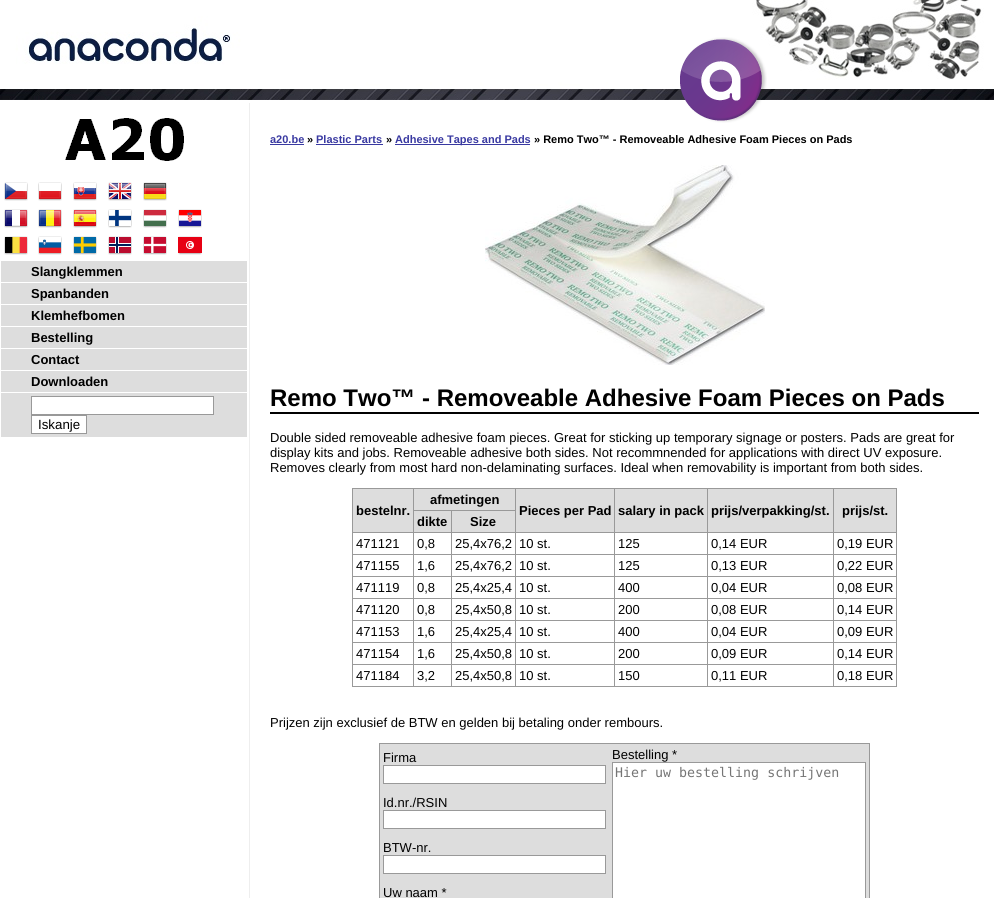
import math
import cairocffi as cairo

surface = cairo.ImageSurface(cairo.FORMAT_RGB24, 994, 898)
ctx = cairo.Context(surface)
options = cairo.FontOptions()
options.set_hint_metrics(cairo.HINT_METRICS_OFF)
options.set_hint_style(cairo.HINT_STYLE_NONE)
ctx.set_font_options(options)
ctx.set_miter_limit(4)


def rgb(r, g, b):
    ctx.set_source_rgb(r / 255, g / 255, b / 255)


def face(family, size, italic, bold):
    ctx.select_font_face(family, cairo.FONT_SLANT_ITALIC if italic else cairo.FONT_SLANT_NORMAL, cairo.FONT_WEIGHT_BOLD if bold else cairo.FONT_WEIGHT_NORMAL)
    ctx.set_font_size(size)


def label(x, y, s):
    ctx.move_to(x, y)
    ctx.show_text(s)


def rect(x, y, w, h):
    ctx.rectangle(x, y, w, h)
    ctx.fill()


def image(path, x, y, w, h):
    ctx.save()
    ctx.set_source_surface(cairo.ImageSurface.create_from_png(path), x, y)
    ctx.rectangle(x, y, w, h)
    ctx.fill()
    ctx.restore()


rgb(255, 255, 255)
ctx.paint()
image('image0.png', 0, 0, 994, 100)
image('image1.png', 680, 37, 87, 86)
image('image2.png', 65, 118, 119, 43)
image('image3.png', 4, 182, 24, 19)
image('image4.png', 38, 182, 24, 19)
image('image5.png', 73, 182, 24, 19)
image('image6.png', 108, 182, 24, 19)
image('image7.png', 143, 182, 24, 19)
image('image8.png', 4, 209, 24, 19)
image('image9.png', 38, 209, 24, 19)
image('image10.png', 73, 209, 24, 19)
image('image11.png', 108, 209, 24, 19)
image('image12.png', 143, 209, 24, 19)
image('image13.png', 178, 209, 24, 19)
image('image14.png', 4, 236, 24, 19)
image('image15.png', 38, 236, 24, 19)
image('image16.png', 73, 236, 24, 19)
image('image17.png', 108, 236, 24, 19)
image('image18.png', 143, 236, 24, 19)
image('image19.png', 178, 236, 24, 19)
rgb(221, 221, 221)
rect(1, 261, 246, 21)
face('Liberation Sans', 13, 0, 1)
rgb(0, 0, 0)
label(31, 276, 'Slangklemmen')
rgb(221, 221, 221)
rect(1, 283, 246, 21)
rgb(0, 0, 0)
label(31, 298, 'Spanbanden')
rgb(221, 221, 221)
rect(1, 305, 246, 21)
rgb(0, 0, 0)
label(31, 320, 'Klemhefbomen')
rgb(221, 221, 221)
rect(1, 327, 246, 21)
rgb(0, 0, 0)
label(31, 342, 'Bestelling')
rgb(221, 221, 221)
rect(1, 349, 246, 21)
rgb(0, 0, 0)
label(31, 364, 'Contact')
rgb(221, 221, 221)
rect(1, 371, 246, 21)
rgb(0, 0, 0)
label(31, 386, 'Downloaden')
rgb(221, 221, 221)
rect(1, 393, 246, 44)
rgb(255, 255, 255)
ctx.rectangle(31.5, 396.5, 182, 18)
ctx.fill_preserve()
rgb(153, 153, 153)
ctx.set_line_width(1)
ctx.stroke()
rgb(255, 255, 255)
ctx.rectangle(31.5, 415.5, 55, 18)
ctx.fill_preserve()
rgb(153, 153, 153)
ctx.stroke()
face('Liberation Sans', 13.3, 0, 0)
rgb(0, 0, 0)
label(38, 429, 'Iskanje')
rgb(238, 238, 238)
rect(249, 103, 1, 795)
face('Liberation Sans', 11, 0, 1)
rgb(57, 57, 161)
label(270, 143, 'a20.be')
rect(270, 144, 34, 1)
rgb(0, 0, 0)
label(307, 143, '»')
rgb(57, 57, 161)
label(316, 143, 'Plastic Parts')
rect(316, 144, 67, 1)
rgb(0, 0, 0)
label(386, 143, '»')
rgb(57, 57, 161)
rect(395, 144, 135, 1)
label(395, 143, 'Adhesive Tapes and Pads')
rgb(0, 0, 0)
label(534, 143, '» Remo Two™ - Removeable Adhesive Foam Pieces on Pads')
image('image20.png', 485, 165, 280, 200)
rect(270, 412, 709, 2)
face('Liberation Sans', 24, 0, 1)
label(270, 406, 'Remo Two™ - Removeable Adhesive Foam Pieces on Pads')
face('Liberation Sans', 13, 0, 0)
label(270, 442, 'Double sided removeable adhesive foam pieces. Great for sticking up temporary signage or posters. Pads are great for')
label(270, 457, 'display kits and jobs. Removeable adhesive both sides. Not recommnended for applications with direct UV exposure.')
label(270, 472, 'Removes clearly from most hard non-delaminating surfaces. Ideal when removability is important from both sides.')
rgb(153, 153, 153)
rect(352, 488, 545, 1)
rect(896, 488, 1, 199)
rect(352, 686, 545, 1)
rect(352, 488, 1, 199)
rgb(221, 221, 221)
rect(414, 489, 101, 21)
face('Liberation Sans', 13, 0, 1)
rgb(0, 0, 0)
label(430, 504, 'afmetingen')
rgb(221, 221, 221)
rect(353, 489, 60, 43)
rgb(0, 0, 0)
label(356, 515, 'bestelnr.')
rgb(221, 221, 221)
rect(516, 489, 98, 43)
rgb(153, 153, 153)
rect(451, 510, 65, 1)
rect(833, 532, 64, 1)
rect(833, 554, 64, 1)
rect(833, 576, 64, 1)
rect(833, 598, 64, 1)
rect(833, 620, 64, 1)
rect(833, 642, 64, 1)
rect(833, 664, 64, 1)
rect(833, 664, 1, 23)
rect(707, 664, 127, 1)
rect(833, 642, 1, 23)
rect(707, 642, 127, 1)
rect(833, 620, 1, 23)
rect(707, 620, 127, 1)
rect(833, 598, 1, 23)
rect(707, 598, 127, 1)
rect(833, 576, 1, 23)
rect(707, 576, 127, 1)
rect(833, 554, 1, 23)
rect(707, 554, 127, 1)
rect(833, 532, 1, 23)
rect(707, 532, 127, 1)
rect(707, 664, 1, 23)
rect(614, 664, 94, 1)
rect(707, 642, 1, 23)
rect(614, 642, 94, 1)
rect(707, 620, 1, 23)
rect(614, 620, 94, 1)
rect(707, 598, 1, 23)
rect(614, 598, 94, 1)
rect(707, 576, 1, 23)
rect(614, 576, 94, 1)
rect(707, 554, 1, 23)
rect(614, 554, 94, 1)
rect(707, 532, 1, 23)
rect(614, 532, 94, 1)
rect(614, 664, 1, 23)
rect(515, 664, 100, 1)
rect(614, 642, 1, 23)
rect(515, 642, 100, 1)
rect(614, 620, 1, 23)
rect(515, 620, 100, 1)
rect(614, 598, 1, 23)
rect(515, 598, 100, 1)
rect(614, 576, 1, 23)
rect(515, 576, 100, 1)
rect(614, 554, 1, 23)
rect(515, 554, 100, 1)
rect(614, 532, 1, 23)
rect(515, 532, 100, 1)
rect(515, 664, 1, 23)
rect(451, 664, 65, 1)
rect(515, 642, 1, 23)
rect(451, 642, 65, 1)
rect(515, 620, 1, 23)
rect(451, 620, 65, 1)
rect(515, 598, 1, 23)
rect(451, 598, 65, 1)
rect(515, 576, 1, 23)
rect(451, 576, 65, 1)
rect(515, 554, 1, 23)
rect(451, 554, 65, 1)
rect(515, 532, 1, 23)
rect(451, 532, 65, 1)
rect(515, 488, 1, 45)
rgb(0, 0, 0)
label(519, 515, 'Pieces per Pad')
rgb(221, 221, 221)
rect(615, 489, 92, 43)
rgb(153, 153, 153)
rect(614, 488, 1, 45)
rgb(0, 0, 0)
label(618, 515, 'salary in pack')
rgb(221, 221, 221)
rect(708, 489, 125, 43)
rgb(153, 153, 153)
rect(707, 488, 1, 45)
rgb(0, 0, 0)
label(711, 515, 'prijs/verpakking/st.')
rgb(221, 221, 221)
rect(834, 489, 62, 43)
rgb(153, 153, 153)
rect(833, 488, 1, 45)
rgb(0, 0, 0)
label(842, 515, 'prijs/st.')
rgb(221, 221, 221)
rect(414, 511, 37, 21)
rgb(153, 153, 153)
rect(451, 664, 1, 23)
rect(413, 664, 39, 1)
rect(451, 642, 1, 23)
rect(413, 642, 39, 1)
rect(451, 620, 1, 23)
rect(413, 620, 39, 1)
rect(451, 598, 1, 23)
rect(413, 598, 39, 1)
rect(451, 576, 1, 23)
rect(413, 576, 39, 1)
rect(451, 554, 1, 23)
rect(413, 554, 39, 1)
rect(451, 532, 1, 23)
rect(413, 532, 39, 1)
rect(451, 510, 1, 23)
rect(413, 510, 39, 1)
rect(413, 664, 1, 23)
rect(352, 664, 62, 1)
rect(413, 642, 1, 23)
rect(352, 642, 62, 1)
rect(413, 620, 1, 23)
rect(352, 620, 62, 1)
rect(413, 598, 1, 23)
rect(352, 598, 62, 1)
rect(413, 576, 1, 23)
rect(352, 576, 62, 1)
rect(413, 554, 1, 23)
rect(352, 554, 62, 1)
rect(413, 532, 1, 23)
rect(352, 532, 62, 1)
rect(413, 488, 1, 45)
rgb(0, 0, 0)
label(417, 526, 'dikte')
rgb(221, 221, 221)
rect(452, 511, 63, 21)
rgb(0, 0, 0)
label(470, 526, 'Size')
face('Liberation Sans', 13, 0, 0)
label(356, 548, '471121')
label(417, 548, '0,8')
label(455, 548, '25,4x76,2')
label(519, 548, '10 st.')
label(618, 548, '125')
label(711, 548, '0,14 EUR')
label(837, 548, '0,19 EUR')
label(356, 570, '471155')
label(417, 570, '1,6')
label(455, 570, '25,4x76,2')
label(519, 570, '10 st.')
label(618, 570, '125')
label(711, 570, '0,13 EUR')
label(837, 570, '0,22 EUR')
label(356, 592, '471119')
label(417, 592, '0,8')
label(455, 592, '25,4x25,4')
label(519, 592, '10 st.')
label(618, 592, '400')
label(711, 592, '0,04 EUR')
label(837, 592, '0,08 EUR')
label(356, 614, '471120')
label(417, 614, '0,8')
label(455, 614, '25,4x50,8')
label(519, 614, '10 st.')
label(618, 614, '200')
label(711, 614, '0,08 EUR')
label(837, 614, '0,14 EUR')
label(356, 636, '471153')
label(417, 636, '1,6')
label(455, 636, '25,4x25,4')
label(519, 636, '10 st.')
label(618, 636, '400')
label(711, 636, '0,04 EUR')
label(837, 636, '0,09 EUR')
label(356, 658, '471154')
label(417, 658, '1,6')
label(455, 658, '25,4x50,8')
label(519, 658, '10 st.')
label(618, 658, '200')
label(711, 658, '0,09 EUR')
label(837, 658, '0,14 EUR')
label(356, 680, '471184')
label(417, 680, '3,2')
label(455, 680, '25,4x50,8')
label(519, 680, '10 st.')
label(618, 680, '150')
label(711, 680, '0,11 EUR')
label(837, 680, '0,18 EUR')
label(270, 727, 'Prijzen zijn exclusief de BTW en gelden bij betaling onder rembours.')
rgb(221, 221, 221)
rect(380, 744, 489, 154)
rgb(153, 153, 153)
rect(379, 743, 491, 1)
rect(869, 743, 1, 155)
rect(379, 743, 1, 155)
rgb(0, 0, 0)
label(383, 762, 'Firma')
rgb(255, 255, 255)
ctx.rectangle(383.5, 765.5, 222, 18)
ctx.fill_preserve()
rgb(153, 153, 153)
ctx.stroke()
rgb(0, 0, 0)
label(612, 759, 'Bestelling *')
rgb(255, 255, 255)
ctx.rectangle(612.5, 762.5, 253, 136)
ctx.fill_preserve()
rgb(153, 153, 153)
ctx.stroke()
face('DejaVu Sans Mono', 13.3, 0, 0)
rgb(117, 117, 117)
label(615, 777, 'Hier uw bestelling schrijven')
face('Liberation Sans', 13, 0, 0)
rgb(0, 0, 0)
label(383, 807, 'Id.nr./RSIN')
rgb(255, 255, 255)
ctx.rectangle(383.5, 810.5, 222, 18)
ctx.fill_preserve()
rgb(153, 153, 153)
ctx.stroke()
rgb(0, 0, 0)
label(383, 852, 'BTW-nr.')
rgb(255, 255, 255)
ctx.rectangle(383.5, 855.5, 222, 18)
ctx.fill_preserve()
rgb(153, 153, 153)
ctx.stroke()
rgb(0, 0, 0)
label(383, 897, 'Uw naam *')
surface.write_to_png('render.png')
